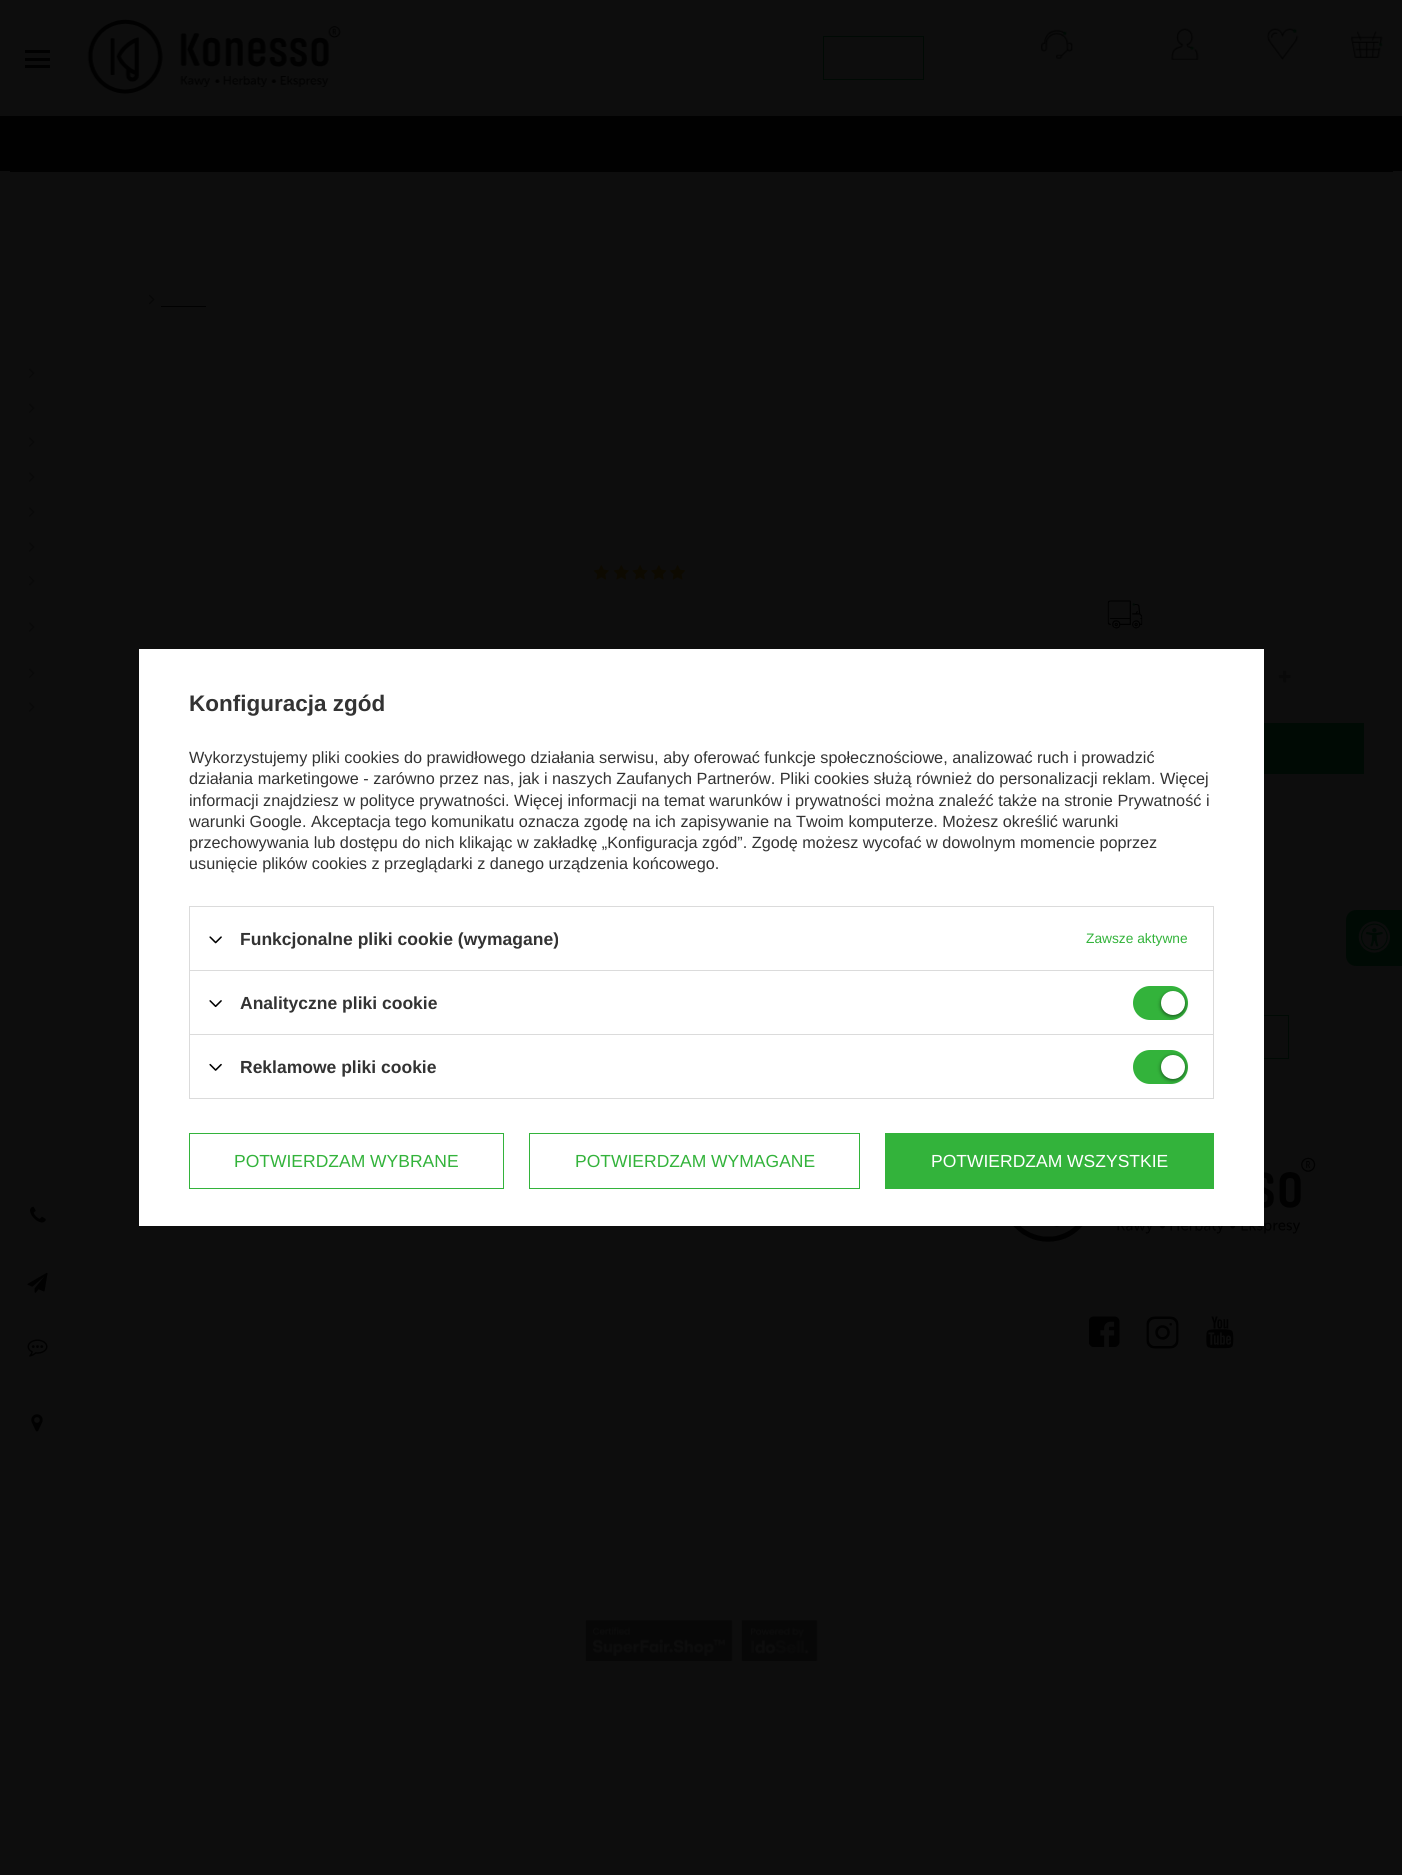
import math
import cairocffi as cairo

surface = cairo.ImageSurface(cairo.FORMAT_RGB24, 1402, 1875)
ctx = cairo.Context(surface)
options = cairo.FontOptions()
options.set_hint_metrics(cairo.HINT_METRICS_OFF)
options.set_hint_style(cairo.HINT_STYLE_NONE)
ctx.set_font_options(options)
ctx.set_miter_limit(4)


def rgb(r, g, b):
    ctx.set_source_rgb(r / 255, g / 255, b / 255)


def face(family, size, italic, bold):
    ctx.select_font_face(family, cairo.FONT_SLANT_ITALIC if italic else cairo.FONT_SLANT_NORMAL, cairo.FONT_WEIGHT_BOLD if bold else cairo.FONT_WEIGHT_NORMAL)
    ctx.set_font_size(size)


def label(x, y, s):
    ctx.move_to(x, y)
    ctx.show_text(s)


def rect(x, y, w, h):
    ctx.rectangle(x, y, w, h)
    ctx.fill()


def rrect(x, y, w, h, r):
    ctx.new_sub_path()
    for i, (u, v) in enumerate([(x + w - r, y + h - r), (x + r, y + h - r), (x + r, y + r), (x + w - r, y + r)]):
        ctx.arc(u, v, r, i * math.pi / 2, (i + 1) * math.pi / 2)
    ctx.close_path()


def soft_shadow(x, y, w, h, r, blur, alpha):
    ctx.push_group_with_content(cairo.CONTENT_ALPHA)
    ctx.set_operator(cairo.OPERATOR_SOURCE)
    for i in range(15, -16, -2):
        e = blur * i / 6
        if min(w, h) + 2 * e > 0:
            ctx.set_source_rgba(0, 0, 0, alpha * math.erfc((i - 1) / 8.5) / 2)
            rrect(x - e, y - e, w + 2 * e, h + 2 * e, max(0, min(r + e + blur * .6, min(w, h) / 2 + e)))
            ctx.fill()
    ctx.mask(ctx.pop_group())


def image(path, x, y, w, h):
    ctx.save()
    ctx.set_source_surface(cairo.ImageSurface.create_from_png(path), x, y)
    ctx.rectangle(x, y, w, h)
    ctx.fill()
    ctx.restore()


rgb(13, 13, 13)
ctx.paint()
rgb(1, 1, 1)
rect(25, 58, 25, 3)
rect(25, 50, 25, 3)
rect(25, 65, 25, 3)
image('image0.png', 87, 19, 254, 75)
ctx.rectangle(823.5, 36.5, 100, 43)
rgb(0, 10, 4)
ctx.set_line_width(1)
ctx.stroke()
image('image1.png', 1041, 29, 32, 30)
image('image2.png', 1171, 28, 28, 32)
image('image3.png', 1267, 28, 32, 32)
image('image4.png', 1351, 31, 32, 27)
rgb(1, 1, 1)
rect(0, 116, 1402, 55)
rect(10, 171, 1383, 1)
image('image5.png', 149, 294, 6, 11)
rect(161, 306, 45, 1)
image('image6.png', 29, 368, 6, 10)
image('image6.png', 29, 403, 6, 10)
image('image7.png', 29, 437, 6, 10)
image('image7.png', 29, 472, 6, 10)
image('image7.png', 29, 507, 6, 10)
image('image7.png', 29, 542, 6, 10)
image('image8.png', 29, 576, 6, 10)
image('image7.png', 29, 622, 6, 10)
image('image6.png', 29, 668, 6, 10)
image('image7.png', 29, 702, 6, 10)
image('image9.png', 593, 565, 16, 15)
image('image9.png', 613, 565, 16, 15)
image('image10.png', 632, 565, 16, 15)
image('image11.png', 651, 565, 16, 15)
image('image12.png', 670, 565, 15, 15)
image('image13.png', 1107, 600, 36, 29)
image('image14.png', 1278, 670, 13, 13)
rgb(0, 10, 4)
rect(1264, 723, 100, 51)
ctx.rectangle(1161.5, 1015.5, 127, 43)
ctx.stroke()
image('image23.png', 1013, 1157, 303, 85)
rgb(255, 255, 255)
rect(139, 649, 1125, 577)
face('Liberation Sans', 22.5, 0, 1)
rgb(51, 51, 51)
label(189, 711, 'Konfiguracja zgód')
face('Liberation Sans', 16.25, 0, 0)
label(189, 763, 'Wykorzystujemy pliki cookies do prawidłowego działania serwisu, aby oferować funkcje społecznościowe, analizować ruch i prowadzić')
label(189, 784, 'działania marketingowe - zarówno przez nas, jak i naszych Zaufanych Partnerów. Pliki cookies służą również do personalizacji reklam. Więcej')
label(189, 806, 'informacji znajdziesz w polityce prywatności. Więcej informacji na temat warunków i prywatności można znaleźć także na stronie Prywatność i')
label(189, 827, 'warunki Google. Akceptacja tego komunikatu oznacza zgodę na ich zapisywanie na Twoim komputerze. Możesz określić warunki')
label(189, 848, 'przechowywania lub dostępu do nich klikając w zakładkę „Konfiguracja zgód”. Zgodę możesz wycofać w dowolnym momencie poprzez')
label(189, 869, 'usunięcie plików cookies z przeglądarki z danego urządzenia końcowego.')
rgb(219, 219, 219)
rect(189, 906, 1025, 1)
rect(1213, 906, 1, 64)
rect(189, 906, 1, 64)
image('image15.png', 209, 936, 13, 8)
face('Liberation Sans', 17.5, 0, 1)
rgb(51, 51, 51)
label(240, 945, 'Funkcjonalne pliki cookie (wymagane)')
face('Liberation Sans', 13.75, 0, 0)
rgb(51, 179, 59)
label(1086, 943, 'Zawsze aktywne')
rgb(219, 219, 219)
rect(189, 970, 1025, 1)
rect(1213, 970, 1, 64)
rect(189, 970, 1, 64)
image('image16.png', 209, 1000, 13, 8)
face('Liberation Sans', 17.5, 0, 1)
rgb(51, 51, 51)
label(240, 1009, 'Analityczne pliki cookie')
rgb(51, 179, 59)
rrect(1133, 986, 55, 34, 17)
ctx.fill()
rgb(0, 0, 0)
soft_shadow(1161, 993, 24, 23, 11.5, 2, 0.56)
rgb(255, 255, 255)
ctx.arc(1173, 1003, 12, 0, 2 * math.pi)
ctx.fill()
ctx.rectangle(189.5, 1034.5, 1024, 64)
rgb(219, 219, 219)
ctx.stroke()
image('image17.png', 209, 1063, 13, 8)
rgb(51, 51, 51)
label(240, 1073, 'Reklamowe pliki cookie')
rgb(51, 179, 59)
rrect(1133, 1050, 55, 34, 17)
ctx.fill()
rgb(0, 0, 0)
soft_shadow(1161, 1056, 24, 24, 12, 2, 0.56)
rgb(255, 255, 255)
ctx.arc(1173, 1067, 12, 0, 2 * math.pi)
ctx.fill()
ctx.rectangle(189.5, 1133.5, 314, 55)
rgb(51, 179, 59)
ctx.stroke()
face('Liberation Sans', 17.5, 0, 0)
label(234, 1167, 'POTWIERDZAM WYBRANE')
ctx.rectangle(529.5, 1133.5, 330, 55)
ctx.stroke()
label(575, 1167, 'POTWIERDZAM WYMAGANE')
rect(885, 1133, 329, 56)
rgb(255, 255, 255)
label(931, 1167, 'POTWIERDZAM WSZYSTKIE')
rgb(0, 10, 4)
ctx.new_path()
ctx.move_to(1356, 910)
ctx.line_to(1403, 910)
ctx.line_to(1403, 966)
ctx.line_to(1356, 966)
ctx.curve_to(1350.5, 966, 1346, 961.5, 1346, 956)
ctx.line_to(1346, 920)
ctx.curve_to(1346, 914.5, 1350.5, 910, 1356, 910)
ctx.close_path()
ctx.fill()
image('image18.png', 1358, 921, 32, 32)
image('image19.png', 30, 1206, 16, 17)
image('image20.png', 27, 1272, 21, 21)
image('image21.png', 27, 1339, 21, 18)
image('image22.png', 31, 1414, 12, 18)
image('image24.png', 1089, 1316, 31, 31)
image('image25.png', 1146, 1316, 33, 33)
image('image26.png', 1206, 1316, 28, 33)
image('image27.png', 585, 1620, 233, 41)
surface.write_to_png('render.png')
